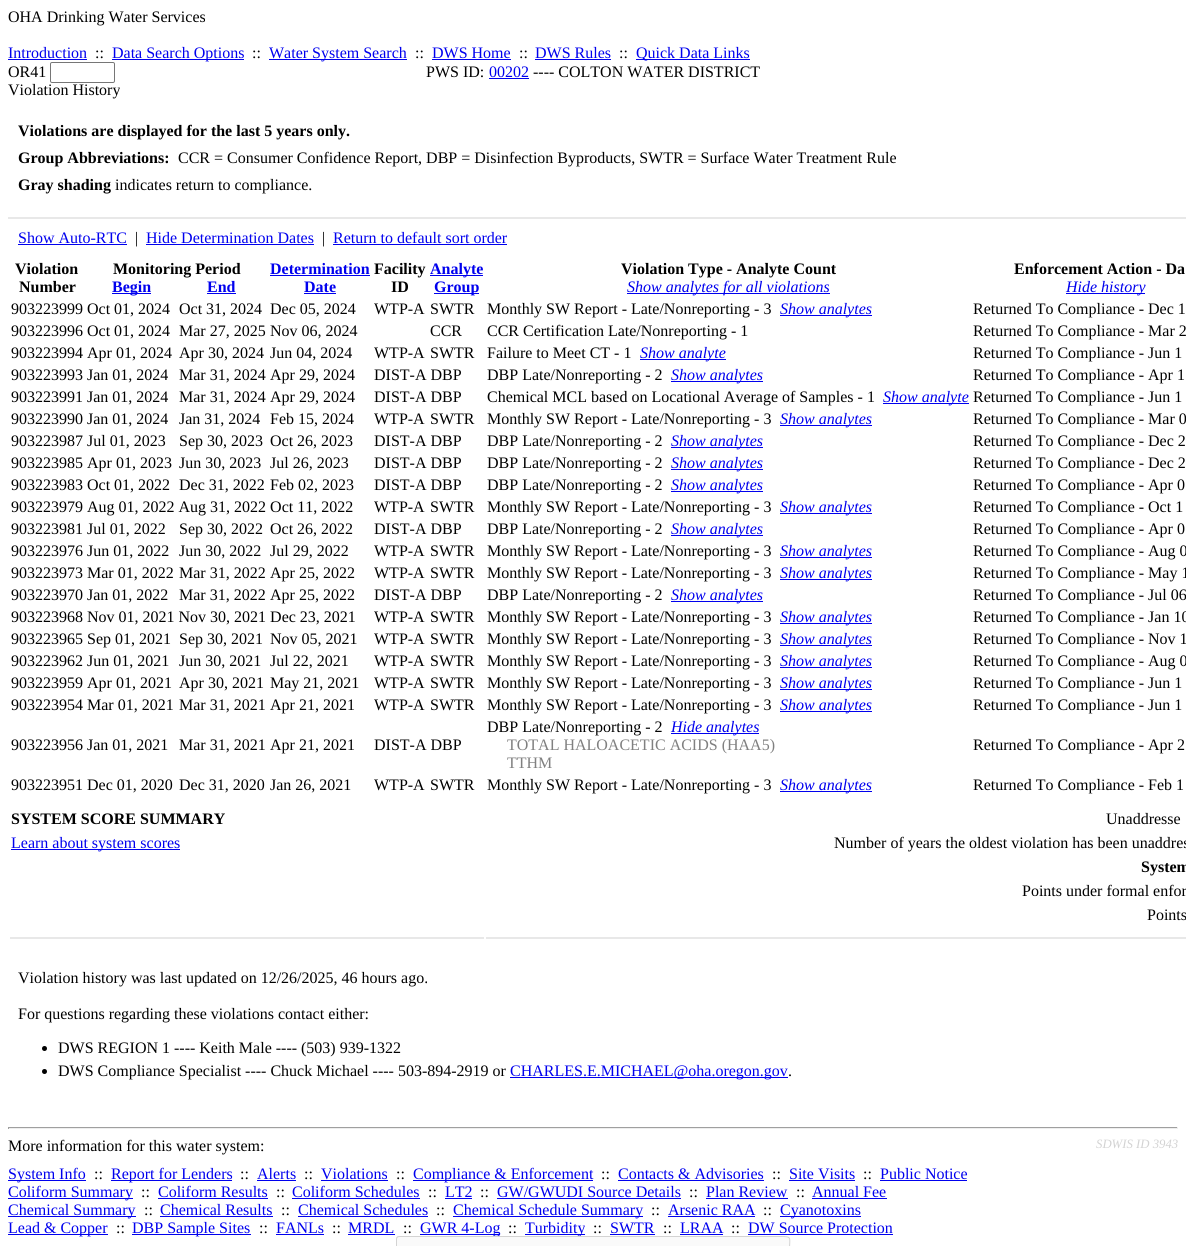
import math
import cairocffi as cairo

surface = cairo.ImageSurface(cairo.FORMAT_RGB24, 1186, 1246)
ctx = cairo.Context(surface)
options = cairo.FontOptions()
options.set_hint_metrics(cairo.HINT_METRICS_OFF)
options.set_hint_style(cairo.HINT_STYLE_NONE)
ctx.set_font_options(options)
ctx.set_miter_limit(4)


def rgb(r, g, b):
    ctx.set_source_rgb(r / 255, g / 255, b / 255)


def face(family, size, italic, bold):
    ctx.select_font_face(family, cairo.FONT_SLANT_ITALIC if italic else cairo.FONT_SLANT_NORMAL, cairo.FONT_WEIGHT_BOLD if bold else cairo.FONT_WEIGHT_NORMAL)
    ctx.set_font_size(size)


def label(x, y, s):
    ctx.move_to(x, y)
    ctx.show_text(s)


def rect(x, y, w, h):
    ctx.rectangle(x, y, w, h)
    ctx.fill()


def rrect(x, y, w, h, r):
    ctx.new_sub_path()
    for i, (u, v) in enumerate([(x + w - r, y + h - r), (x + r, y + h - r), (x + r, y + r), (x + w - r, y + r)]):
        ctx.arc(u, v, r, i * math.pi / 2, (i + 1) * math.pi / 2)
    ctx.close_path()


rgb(255, 255, 255)
ctx.paint()
face('Liberation Serif', 16, 0, 0)
rgb(0, 0, 0)
label(8, 22, 'OHA Drinking Water Services')
rgb(0, 0, 238)
label(8, 58, 'Introduction')
rect(8, 59, 79, 1)
rgb(0, 0, 0)
label(95, 58, '::')
rgb(0, 0, 238)
rect(112, 59, 132, 1)
label(112, 58, 'Data Search Options')
rgb(0, 0, 0)
label(252, 58, '::')
rgb(0, 0, 238)
rect(269, 59, 138, 1)
label(269, 58, 'Water System Search')
rgb(0, 0, 0)
label(415, 58, '::')
rgb(0, 0, 238)
label(432, 58, 'DWS Home')
rect(432, 59, 79, 1)
rgb(0, 0, 0)
label(519, 58, '::')
rgb(0, 0, 238)
label(535, 58, 'DWS Rules')
rect(535, 59, 76, 1)
rgb(0, 0, 0)
label(619, 58, '::')
rgb(0, 0, 238)
rect(636, 59, 114, 1)
label(636, 58, 'Quick Data Links')
rgb(0, 0, 0)
label(8, 77, 'OR41')
rrect(50.5, 62.5, 64, 20, 1.5)
rgb(118, 118, 118)
ctx.set_line_width(1)
ctx.stroke()
rgb(0, 0, 0)
label(426, 77, 'PWS ID:')
rgb(0, 0, 238)
label(489, 77, '00202')
rect(489, 78, 40, 1)
rgb(0, 0, 0)
label(533, 77, '---- COLTON WATER DISTRICT')
label(8, 95, 'Violation History')
face('Liberation Serif', 16, 0, 1)
label(18, 136, 'Violations are displayed for the last 5 years only.')
label(18, 163, 'Group Abbreviations:')
face('Liberation Serif', 16, 0, 0)
label(178, 163, 'CCR = Consumer Confidence Report, DBP = Disinfection Byproducts, SWTR = Surface Water Treatment Rule')
face('Liberation Serif', 16, 0, 1)
label(18, 190, 'Gray shading')
face('Liberation Serif', 16, 0, 0)
label(115, 190, 'indicates return to compliance.')
rgb(232, 232, 232)
rect(8, 217, 1178, 2)
rgb(0, 0, 238)
label(18, 243, 'Show Auto-RTC')
rect(18, 244, 109, 1)
rgb(0, 0, 0)
label(135, 243, '|')
rgb(0, 0, 238)
label(146, 243, 'Hide Determination Dates')
rect(146, 244, 168, 1)
rgb(0, 0, 0)
label(322, 243, '|')
rgb(0, 0, 238)
label(333, 243, 'Return to default sort order')
rect(333, 244, 174, 1)
face('Liberation Serif', 16, 0, 1)
rgb(0, 0, 0)
label(15, 274, 'Violation')
label(19, 292, 'Number')
label(113, 274, 'Monitoring Period')
rgb(0, 0, 238)
rect(112, 293, 39, 1)
label(112, 292, 'Begin')
label(207, 292, 'End')
rect(207, 293, 29, 1)
label(270, 274, 'Determination')
rect(270, 275, 100, 1)
label(304, 292, 'Date')
rect(304, 293, 32, 1)
rgb(0, 0, 0)
label(374, 274, 'Facility')
label(391, 292, 'ID')
rgb(0, 0, 238)
rect(430, 275, 53, 1)
label(430, 274, 'Analyte')
rect(434, 293, 45, 1)
label(434, 292, 'Group')
rgb(0, 0, 0)
label(621, 274, 'Violation Type - Analyte Count')
rgb(0, 0, 238)
rect(627, 293, 203, 1)
face('Liberation Serif', 16, 1, 0)
label(627, 292, 'Show analytes for all violations')
face('Liberation Serif', 16, 0, 1)
rgb(0, 0, 0)
label(1014, 274, 'Enforcement Action - Da')
rgb(0, 0, 238)
rect(1066, 293, 79, 1)
face('Liberation Serif', 16, 1, 0)
label(1066, 292, 'Hide history')
face('Liberation Serif', 16, 0, 0)
rgb(0, 0, 0)
label(11, 314, '903223999 Oct 01, 2024')
label(179, 314, 'Oct 31, 2024')
label(270, 314, 'Dec 05, 2024')
label(374, 314, 'WTP-A')
label(430, 314, 'SWTR')
label(487, 314, 'Monthly SW Report - Late/Nonreporting - 3')
rgb(0, 0, 238)
rect(780, 315, 92, 1)
face('Liberation Serif', 16, 1, 0)
label(780, 314, 'Show analytes')
face('Liberation Serif', 16, 0, 0)
rgb(0, 0, 0)
label(973, 314, 'Returned To Compliance - Dec 1')
label(11, 336, '903223996 Oct 01, 2024')
label(179, 336, 'Mar 27, 2025')
label(270, 336, 'Nov 06, 2024')
label(430, 336, 'CCR')
label(487, 336, 'CCR Certification Late/Nonreporting - 1')
label(973, 336, 'Returned To Compliance - Mar 2')
label(11, 358, '903223994 Apr 01, 2024')
label(179, 358, 'Apr 30, 2024')
label(270, 358, 'Jun 04, 2024')
label(374, 358, 'WTP-A')
label(430, 358, 'SWTR')
label(487, 358, 'Failure to Meet CT - 1')
rgb(0, 0, 238)
rect(640, 359, 86, 1)
face('Liberation Serif', 16, 1, 0)
label(640, 358, 'Show analyte')
face('Liberation Serif', 16, 0, 0)
rgb(0, 0, 0)
label(973, 358, 'Returned To Compliance - Jun 1')
label(11, 380, '903223993 Jan 01, 2024')
label(179, 380, 'Mar 31, 2024')
label(270, 380, 'Apr 29, 2024')
label(374, 380, 'DIST-A DBP')
label(487, 380, 'DBP Late/Nonreporting - 2')
rgb(0, 0, 238)
rect(671, 381, 92, 1)
face('Liberation Serif', 16, 1, 0)
label(671, 380, 'Show analytes')
face('Liberation Serif', 16, 0, 0)
rgb(0, 0, 0)
label(973, 380, 'Returned To Compliance - Apr 1')
label(11, 402, '903223991 Jan 01, 2024')
label(179, 402, 'Mar 31, 2024')
label(270, 402, 'Apr 29, 2024')
label(374, 402, 'DIST-A DBP')
label(487, 402, 'Chemical MCL based on Locational Average of Samples - 1')
rgb(0, 0, 238)
rect(883, 403, 86, 1)
face('Liberation Serif', 16, 1, 0)
label(883, 402, 'Show analyte')
face('Liberation Serif', 16, 0, 0)
rgb(0, 0, 0)
label(973, 402, 'Returned To Compliance - Jun 1')
label(11, 424, '903223990 Jan 01, 2024')
label(179, 424, 'Jan 31, 2024')
label(270, 424, 'Feb 15, 2024')
label(374, 424, 'WTP-A')
label(430, 424, 'SWTR')
label(487, 424, 'Monthly SW Report - Late/Nonreporting - 3')
rgb(0, 0, 238)
rect(780, 425, 92, 1)
face('Liberation Serif', 16, 1, 0)
label(780, 424, 'Show analytes')
face('Liberation Serif', 16, 0, 0)
rgb(0, 0, 0)
label(973, 424, 'Returned To Compliance - Mar 0')
label(11, 446, '903223987 Jul 01, 2023')
label(179, 446, 'Sep 30, 2023')
label(270, 446, 'Oct 26, 2023')
label(374, 446, 'DIST-A DBP')
label(487, 446, 'DBP Late/Nonreporting - 2')
rgb(0, 0, 238)
rect(671, 447, 92, 1)
face('Liberation Serif', 16, 1, 0)
label(671, 446, 'Show analytes')
face('Liberation Serif', 16, 0, 0)
rgb(0, 0, 0)
label(973, 446, 'Returned To Compliance - Dec 2')
label(11, 468, '903223985 Apr 01, 2023')
label(179, 468, 'Jun 30, 2023')
label(270, 468, 'Jul 26, 2023')
label(374, 468, 'DIST-A DBP')
label(487, 468, 'DBP Late/Nonreporting - 2')
rgb(0, 0, 238)
rect(671, 469, 92, 1)
face('Liberation Serif', 16, 1, 0)
label(671, 468, 'Show analytes')
face('Liberation Serif', 16, 0, 0)
rgb(0, 0, 0)
label(973, 468, 'Returned To Compliance - Dec 2')
label(11, 490, '903223983 Oct 01, 2022')
label(179, 490, 'Dec 31, 2022')
label(270, 490, 'Feb 02, 2023')
label(374, 490, 'DIST-A DBP')
label(487, 490, 'DBP Late/Nonreporting - 2')
rgb(0, 0, 238)
rect(671, 491, 92, 1)
face('Liberation Serif', 16, 1, 0)
label(671, 490, 'Show analytes')
face('Liberation Serif', 16, 0, 0)
rgb(0, 0, 0)
label(973, 490, 'Returned To Compliance - Apr 0')
label(11, 512, '903223979 Aug 01, 2022 Aug 31, 2022 Oct 11, 2022')
label(374, 512, 'WTP-A')
label(430, 512, 'SWTR')
label(487, 512, 'Monthly SW Report - Late/Nonreporting - 3')
rgb(0, 0, 238)
rect(780, 513, 92, 1)
face('Liberation Serif', 16, 1, 0)
label(780, 512, 'Show analytes')
face('Liberation Serif', 16, 0, 0)
rgb(0, 0, 0)
label(973, 512, 'Returned To Compliance - Oct 1')
label(11, 534, '903223981 Jul 01, 2022')
label(179, 534, 'Sep 30, 2022')
label(270, 534, 'Oct 26, 2022')
label(374, 534, 'DIST-A DBP')
label(487, 534, 'DBP Late/Nonreporting - 2')
rgb(0, 0, 238)
rect(671, 535, 92, 1)
face('Liberation Serif', 16, 1, 0)
label(671, 534, 'Show analytes')
face('Liberation Serif', 16, 0, 0)
rgb(0, 0, 0)
label(973, 534, 'Returned To Compliance - Apr 0')
label(11, 556, '903223976 Jun 01, 2022')
label(179, 556, 'Jun 30, 2022')
label(270, 556, 'Jul 29, 2022')
label(374, 556, 'WTP-A')
label(430, 556, 'SWTR')
label(487, 556, 'Monthly SW Report - Late/Nonreporting - 3')
rgb(0, 0, 238)
rect(780, 557, 92, 1)
face('Liberation Serif', 16, 1, 0)
label(780, 556, 'Show analytes')
face('Liberation Serif', 16, 0, 0)
rgb(0, 0, 0)
label(973, 556, 'Returned To Compliance - Aug 0')
label(11, 578, '903223973 Mar 01, 2022')
label(179, 578, 'Mar 31, 2022')
label(270, 578, 'Apr 25, 2022')
label(374, 578, 'WTP-A')
label(430, 578, 'SWTR')
label(487, 578, 'Monthly SW Report - Late/Nonreporting - 3')
rgb(0, 0, 238)
rect(780, 579, 92, 1)
face('Liberation Serif', 16, 1, 0)
label(780, 578, 'Show analytes')
face('Liberation Serif', 16, 0, 0)
rgb(0, 0, 0)
label(973, 578, 'Returned To Compliance - May 1')
label(11, 600, '903223970 Jan 01, 2022')
label(179, 600, 'Mar 31, 2022')
label(270, 600, 'Apr 25, 2022')
label(374, 600, 'DIST-A DBP')
label(487, 600, 'DBP Late/Nonreporting - 2')
rgb(0, 0, 238)
rect(671, 601, 92, 1)
face('Liberation Serif', 16, 1, 0)
label(671, 600, 'Show analytes')
face('Liberation Serif', 16, 0, 0)
rgb(0, 0, 0)
label(973, 600, 'Returned To Compliance - Jul 06')
label(11, 622, '903223968 Nov 01, 2021 Nov 30, 2021 Dec 23, 2021')
label(374, 622, 'WTP-A')
label(430, 622, 'SWTR')
label(487, 622, 'Monthly SW Report - Late/Nonreporting - 3')
rgb(0, 0, 238)
rect(780, 623, 92, 1)
face('Liberation Serif', 16, 1, 0)
label(780, 622, 'Show analytes')
face('Liberation Serif', 16, 0, 0)
rgb(0, 0, 0)
label(973, 622, 'Returned To Compliance - Jan 10')
label(11, 644, '903223965 Sep 01, 2021')
label(179, 644, 'Sep 30, 2021')
label(270, 644, 'Nov 05, 2021')
label(374, 644, 'WTP-A')
label(430, 644, 'SWTR')
label(487, 644, 'Monthly SW Report - Late/Nonreporting - 3')
rgb(0, 0, 238)
rect(780, 645, 92, 1)
face('Liberation Serif', 16, 1, 0)
label(780, 644, 'Show analytes')
face('Liberation Serif', 16, 0, 0)
rgb(0, 0, 0)
label(973, 644, 'Returned To Compliance - Nov 1')
label(11, 666, '903223962 Jun 01, 2021')
label(179, 666, 'Jun 30, 2021')
label(270, 666, 'Jul 22, 2021')
label(374, 666, 'WTP-A')
label(430, 666, 'SWTR')
label(487, 666, 'Monthly SW Report - Late/Nonreporting - 3')
rgb(0, 0, 238)
rect(780, 667, 92, 1)
face('Liberation Serif', 16, 1, 0)
label(780, 666, 'Show analytes')
face('Liberation Serif', 16, 0, 0)
rgb(0, 0, 0)
label(973, 666, 'Returned To Compliance - Aug 0')
label(11, 688, '903223959 Apr 01, 2021')
label(179, 688, 'Apr 30, 2021')
label(270, 688, 'May 21, 2021')
label(374, 688, 'WTP-A')
label(430, 688, 'SWTR')
label(487, 688, 'Monthly SW Report - Late/Nonreporting - 3')
rgb(0, 0, 238)
rect(780, 689, 92, 1)
face('Liberation Serif', 16, 1, 0)
label(780, 688, 'Show analytes')
face('Liberation Serif', 16, 0, 0)
rgb(0, 0, 0)
label(973, 688, 'Returned To Compliance - Jun 1')
label(11, 710, '903223954 Mar 01, 2021')
label(179, 710, 'Mar 31, 2021')
label(270, 710, 'Apr 21, 2021')
label(374, 710, 'WTP-A')
label(430, 710, 'SWTR')
label(487, 710, 'Monthly SW Report - Late/Nonreporting - 3')
rgb(0, 0, 238)
rect(780, 711, 92, 1)
face('Liberation Serif', 16, 1, 0)
label(780, 710, 'Show analytes')
face('Liberation Serif', 16, 0, 0)
rgb(0, 0, 0)
label(973, 710, 'Returned To Compliance - Jun 1')
label(11, 750, '903223956 Jan 01, 2021')
label(179, 750, 'Mar 31, 2021')
label(270, 750, 'Apr 21, 2021')
label(374, 750, 'DIST-A DBP')
label(487, 732, 'DBP Late/Nonreporting - 2')
rgb(0, 0, 238)
rect(671, 733, 88, 1)
face('Liberation Serif', 16, 1, 0)
label(671, 732, 'Hide analytes')
face('Liberation Serif', 16, 0, 0)
rgb(128, 128, 128)
label(507, 750, 'TOTAL HALOACETIC ACIDS (HAA5)')
label(507, 768, 'TTHM')
rgb(0, 0, 0)
label(973, 750, 'Returned To Compliance - Apr 2')
label(11, 790, '903223951 Dec 01, 2020')
label(179, 790, 'Dec 31, 2020')
label(270, 790, 'Jan 26, 2021')
label(374, 790, 'WTP-A')
label(430, 790, 'SWTR')
label(487, 790, 'Monthly SW Report - Late/Nonreporting - 3')
rgb(0, 0, 238)
rect(780, 791, 92, 1)
face('Liberation Serif', 16, 1, 0)
label(780, 790, 'Show analytes')
face('Liberation Serif', 16, 0, 0)
rgb(0, 0, 0)
label(973, 790, 'Returned To Compliance - Feb 1')
rgb(232, 232, 232)
rect(10, 937, 474, 2)
face('Liberation Serif', 16, 0, 1)
rgb(0, 0, 0)
label(11, 824, 'SYSTEM SCORE SUMMARY')
rgb(0, 0, 238)
rect(11, 849, 169, 1)
face('Liberation Serif', 16, 0, 0)
label(11, 848, 'Learn about system scores')
rgb(232, 232, 232)
rect(486, 937, 700, 2)
rgb(0, 0, 0)
label(1106, 824, 'Unaddresse')
label(834, 848, 'Number of years the oldest violation has been unaddres')
face('Liberation Serif', 16, 0, 1)
label(1141, 872, 'System')
face('Liberation Serif', 16, 0, 0)
label(1022, 896, 'Points under formal enfor')
label(1147, 920, 'Points')
label(18, 983, 'Violation history was last updated on 12/26/2025, 46 hours ago.')
label(18, 1019, 'For questions regarding these violations contact either:')
ctx.new_path()
ctx.arc(44.5, 1048.5, 2.5, 0, 2 * math.pi)
ctx.fill()
label(58, 1053, 'DWS REGION 1 ---- Keith Male ---- (503) 939-1322')
ctx.new_path()
ctx.arc(44.5, 1071.5, 2.5, 0, 2 * math.pi)
ctx.fill()
label(58, 1076, 'DWS Compliance Specialist ---- Chuck Michael ---- 503-894-2919 or')
rgb(0, 0, 238)
rect(510, 1077, 278, 1)
label(510, 1076, 'CHARLES.E.MICHAEL@oha.oregon.gov')
rgb(0, 0, 0)
label(788, 1076, '.')
rgb(159, 159, 159)
rect(8, 1127, 1170, 1)
rgb(238, 238, 238)
rect(1177, 1127, 1, 2)
rect(8, 1128, 1170, 1)
rgb(159, 159, 159)
rect(8, 1127, 1, 2)
rgb(0, 0, 0)
label(8, 1151, 'More information for this water system:')
face('Liberation Serif', 12.75, 1, 0)
rgb(211, 211, 211)
label(1096, 1148, 'SDWIS ID 3943')
rgb(0, 0, 238)
rect(8, 1180, 78, 1)
face('Liberation Serif', 16, 0, 0)
label(8, 1179, 'System Info')
rgb(0, 0, 0)
label(94, 1179, '::')
rgb(0, 0, 238)
rect(111, 1180, 121, 1)
label(111, 1179, 'Report for Lenders')
rgb(0, 0, 0)
label(240, 1179, '::')
rgb(0, 0, 238)
label(257, 1179, 'Alerts')
rect(257, 1180, 39, 1)
rgb(0, 0, 0)
label(304, 1179, '::')
rgb(0, 0, 238)
label(321, 1179, 'Violations')
rect(321, 1180, 67, 1)
rgb(0, 0, 0)
label(396, 1179, '::')
rgb(0, 0, 238)
rect(413, 1180, 180, 1)
label(413, 1179, 'Compliance & Enforcement')
rgb(0, 0, 0)
label(601, 1179, '::')
rgb(0, 0, 238)
label(618, 1179, 'Contacts & Advisories')
rect(618, 1180, 146, 1)
rgb(0, 0, 0)
label(772, 1179, '::')
rgb(0, 0, 238)
label(789, 1179, 'Site Visits')
rect(789, 1180, 66, 1)
rgb(0, 0, 0)
label(863, 1179, '::')
rgb(0, 0, 238)
label(880, 1179, 'Public Notice')
rect(880, 1180, 87, 1)
rect(8, 1198, 125, 1)
label(8, 1197, 'Coliform Summary')
rgb(0, 0, 0)
label(141, 1197, '::')
rgb(0, 0, 238)
label(158, 1197, 'Coliform Results')
rect(158, 1198, 110, 1)
rgb(0, 0, 0)
label(276, 1197, '::')
rgb(0, 0, 238)
label(292, 1197, 'Coliform Schedules')
rect(292, 1198, 128, 1)
rgb(0, 0, 0)
label(428, 1197, '::')
rgb(0, 0, 238)
label(445, 1197, 'LT2')
rect(445, 1198, 27, 1)
rgb(0, 0, 0)
label(480, 1197, '::')
rgb(0, 0, 238)
label(497, 1197, 'GW/GWUDI Source Details')
rect(497, 1198, 184, 1)
rgb(0, 0, 0)
label(689, 1197, '::')
rgb(0, 0, 238)
label(706, 1197, 'Plan Review')
rect(706, 1198, 82, 1)
rgb(0, 0, 0)
label(796, 1197, '::')
rgb(0, 0, 238)
label(812, 1197, 'Annual Fee')
rect(812, 1198, 75, 1)
rect(8, 1216, 128, 1)
label(8, 1215, 'Chemical Summary')
rgb(0, 0, 0)
label(144, 1215, '::')
rgb(0, 0, 238)
label(160, 1215, 'Chemical Results')
rect(160, 1216, 113, 1)
rgb(0, 0, 0)
label(281, 1215, '::')
rgb(0, 0, 238)
label(298, 1215, 'Chemical Schedules')
rect(298, 1216, 130, 1)
rgb(0, 0, 0)
label(436, 1215, '::')
rgb(0, 0, 238)
rect(453, 1216, 190, 1)
label(453, 1215, 'Chemical Schedule Summary')
rgb(0, 0, 0)
label(651, 1215, '::')
rgb(0, 0, 238)
label(668, 1215, 'Arsenic RAA')
rect(668, 1216, 87, 1)
rgb(0, 0, 0)
label(763, 1215, '::')
rgb(0, 0, 238)
rect(780, 1216, 81, 1)
label(780, 1215, 'Cyanotoxins')
rect(8, 1234, 100, 1)
label(8, 1233, 'Lead & Copper')
rgb(0, 0, 0)
label(116, 1233, '::')
rgb(0, 0, 238)
rect(132, 1234, 119, 1)
label(132, 1233, 'DBP Sample Sites')
rgb(0, 0, 0)
label(259, 1233, '::')
rgb(0, 0, 238)
label(276, 1233, 'FANLs')
rect(276, 1234, 48, 1)
rgb(0, 0, 0)
label(332, 1233, '::')
rgb(0, 0, 238)
label(348, 1233, 'MRDL')
rect(348, 1234, 47, 1)
rgb(0, 0, 0)
label(403, 1233, '::')
rgb(0, 0, 238)
rect(420, 1234, 80, 1)
label(420, 1233, 'GWR 4-Log')
rgb(0, 0, 0)
label(508, 1233, '::')
rgb(0, 0, 238)
rect(525, 1234, 60, 1)
label(525, 1233, 'Turbidity')
rgb(0, 0, 0)
label(593, 1233, '::')
rgb(0, 0, 238)
label(610, 1233, 'SWTR')
rect(610, 1234, 45, 1)
rgb(0, 0, 0)
label(663, 1233, '::')
rgb(0, 0, 238)
label(680, 1233, 'LRAA')
rect(680, 1234, 43, 1)
rgb(0, 0, 0)
label(731, 1233, '::')
rgb(0, 0, 238)
label(748, 1233, 'DW Source Protection')
rect(748, 1234, 145, 1)
rgb(250, 250, 250)
ctx.new_path()
ctx.move_to(399, 1236)
ctx.line_to(475, 1236)
ctx.line_to(475, 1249)
ctx.line_to(399, 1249)
ctx.curve_to(397.5, 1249, 396, 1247.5, 396, 1246)
ctx.line_to(396, 1239)
ctx.curve_to(396, 1237.5, 397.5, 1236, 399, 1236)
ctx.close_path()
ctx.fill()
rgb(211, 211, 211)
ctx.set_fill_rule(cairo.FILL_RULE_EVEN_ODD)
ctx.new_path()
ctx.move_to(399, 1236)
ctx.line_to(475, 1236)
ctx.line_to(475, 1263)
ctx.line_to(399, 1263)
ctx.curve_to(397, 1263, 396, 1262, 396, 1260)
ctx.line_to(396, 1239)
ctx.curve_to(396, 1237, 397, 1236, 399, 1236)
ctx.close_path()
ctx.move_to(399, 1237)
ctx.line_to(475, 1237)
ctx.line_to(475, 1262)
ctx.line_to(399, 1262)
ctx.curve_to(398, 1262, 397, 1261, 397, 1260)
ctx.line_to(397, 1239)
ctx.curve_to(397, 1238, 398, 1237, 399, 1237)
ctx.close_path()
ctx.fill()
rect(475, 1236, 272, 1)
rgb(250, 250, 250)
ctx.new_path()
ctx.move_to(747, 1236)
ctx.line_to(787, 1236)
ctx.curve_to(788.5, 1236, 790, 1237.5, 790, 1239)
ctx.line_to(790, 1246)
ctx.curve_to(790, 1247.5, 788.5, 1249, 787, 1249)
ctx.line_to(747, 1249)
ctx.close_path()
ctx.fill()
rect(475, 1237, 272, 9)
rgb(211, 211, 211)
ctx.new_path()
ctx.move_to(747, 1236)
ctx.line_to(780, 1236)
ctx.curve_to(793, 1236, 790, 1237, 790, 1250)
ctx.curve_to(790, 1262, 793, 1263, 780, 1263)
ctx.line_to(747, 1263)
ctx.close_path()
ctx.move_to(747, 1237)
ctx.line_to(780, 1237)
ctx.curve_to(792, 1237, 789, 1237, 789, 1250)
ctx.curve_to(789, 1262, 792, 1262, 780, 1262)
ctx.line_to(747, 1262)
ctx.close_path()
ctx.fill()
surface.write_to_png('render.png')
